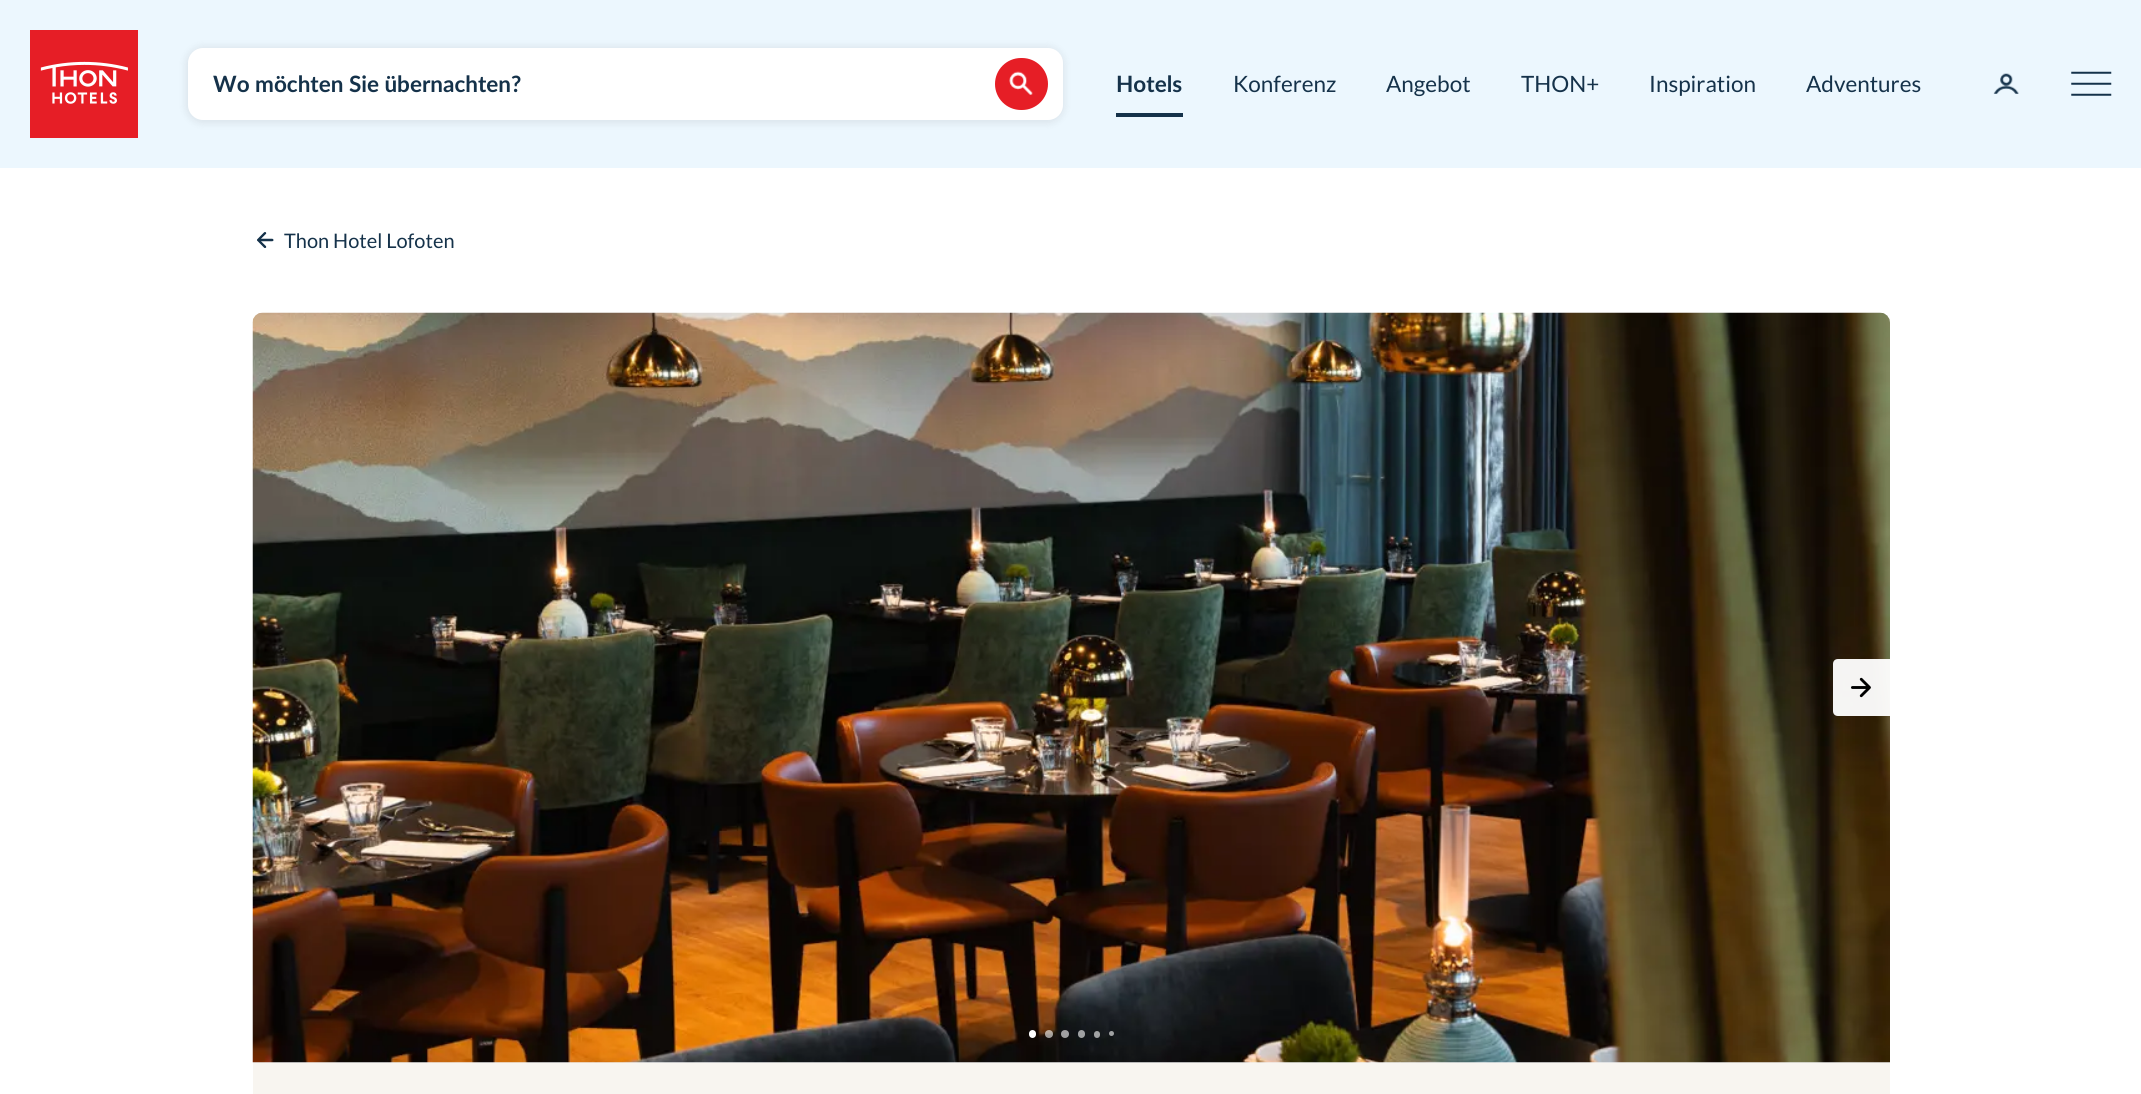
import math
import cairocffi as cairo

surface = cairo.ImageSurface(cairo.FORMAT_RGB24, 2141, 1094)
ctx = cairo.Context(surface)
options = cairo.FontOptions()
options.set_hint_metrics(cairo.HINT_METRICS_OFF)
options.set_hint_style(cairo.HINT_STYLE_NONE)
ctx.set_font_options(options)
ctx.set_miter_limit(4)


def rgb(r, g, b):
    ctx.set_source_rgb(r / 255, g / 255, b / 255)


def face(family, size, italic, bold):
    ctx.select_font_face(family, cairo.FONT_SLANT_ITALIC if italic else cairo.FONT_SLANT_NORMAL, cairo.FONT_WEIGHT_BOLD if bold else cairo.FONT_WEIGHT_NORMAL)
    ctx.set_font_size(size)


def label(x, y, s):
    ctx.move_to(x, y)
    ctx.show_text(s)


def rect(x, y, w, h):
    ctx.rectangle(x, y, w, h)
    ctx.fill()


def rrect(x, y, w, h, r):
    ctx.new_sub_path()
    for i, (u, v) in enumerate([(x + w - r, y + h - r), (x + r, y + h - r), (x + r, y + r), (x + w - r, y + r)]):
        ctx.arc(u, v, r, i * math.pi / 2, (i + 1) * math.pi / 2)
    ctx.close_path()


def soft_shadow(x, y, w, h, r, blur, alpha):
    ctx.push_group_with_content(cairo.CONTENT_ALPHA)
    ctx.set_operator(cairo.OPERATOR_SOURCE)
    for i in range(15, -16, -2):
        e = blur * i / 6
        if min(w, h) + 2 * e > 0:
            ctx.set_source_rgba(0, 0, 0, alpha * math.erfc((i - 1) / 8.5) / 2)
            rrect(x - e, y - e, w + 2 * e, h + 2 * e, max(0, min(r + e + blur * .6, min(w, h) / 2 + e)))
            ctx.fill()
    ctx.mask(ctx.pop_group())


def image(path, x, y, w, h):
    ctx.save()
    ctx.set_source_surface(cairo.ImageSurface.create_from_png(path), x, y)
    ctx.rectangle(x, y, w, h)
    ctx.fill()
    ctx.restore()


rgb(255, 255, 255)
ctx.paint()
rgb(236, 247, 254)
rect(0, 0, 2141, 168)
image('image0.png', 30, 30, 108, 108)
rgb(0, 0, 0)
soft_shadow(185, 46, 880, 78, 18, 4, 0.07)
rgb(255, 255, 255)
rrect(188, 48, 875, 72, 15)
ctx.fill()
face('Lato', 22.5, 0, 1)
rgb(21, 50, 74)
label(213, 92, 'Wo möchten Sie übernachten?')
rgb(230, 30, 38)
rrect(995, 58, 53, 52, 26)
ctx.fill()
image('image1.png', 1009, 71, 24, 24)
rgb(21, 50, 74)
label(1116, 92, 'Hotels')
rect(1116, 113, 67, 4)
face('Lato', 22.5, 0, 0)
label(1233, 92, 'Konferenz')
label(1386, 92, 'Angebot')
label(1521, 92, 'THON+')
label(1649, 92, 'Inspiration')
label(1806, 92, 'Adventures')
image('image2.png', 1993, 73, 26, 21)
image('image3.png', 2071, 71, 41, 25)
image('image4.png', 257, 232, 17, 16)
face('Lato', 20, 0, 0)
label(284, 248, 'Thon Hotel Lofoten')
rgb(241, 241, 241)
ctx.new_path()
ctx.move_to(263, 313)
ctx.line_to(1880, 313)
ctx.curve_to(1885.5, 313, 1890, 317.5, 1890, 323)
ctx.line_to(1890, 1063)
ctx.line_to(253, 1063)
ctx.line_to(253, 323)
ctx.curve_to(253, 317.5, 257.5, 313, 263, 313)
ctx.close_path()
ctx.fill()
image('image5.png', 252, 312, 1638, 751)
ctx.set_source_rgba(1, 1, 1, 0.95)
ctx.new_path()
ctx.move_to(1838, 659)
ctx.line_to(1890, 659)
ctx.line_to(1890, 716)
ctx.line_to(1838, 716)
ctx.curve_to(1835, 716, 1833, 714, 1833, 711)
ctx.line_to(1833, 664)
ctx.curve_to(1833, 661, 1835, 659, 1838, 659)
ctx.close_path()
ctx.fill()
image('image6.png', 1851, 677, 20, 21)
rgb(255, 255, 255)
rrect(1029, 1030, 7, 8, 3.5)
ctx.fill()
ctx.set_source_rgba(1, 1, 1, 0.6)
ctx.arc(1049, 1034, 4, 0, 2 * math.pi)
ctx.fill()
ctx.arc(1065, 1034, 4, 0, 2 * math.pi)
ctx.fill()
rrect(1078, 1030, 7, 8, 3.5)
ctx.fill()
rrect(1094, 1031, 6, 7, 3)
ctx.fill()
ctx.arc(1111.5, 1033.5, 2.5, 0, 2 * math.pi)
ctx.fill()
rgb(248, 245, 240)
rect(253, 1063, 1637, 31)
surface.write_to_png('render.png')
